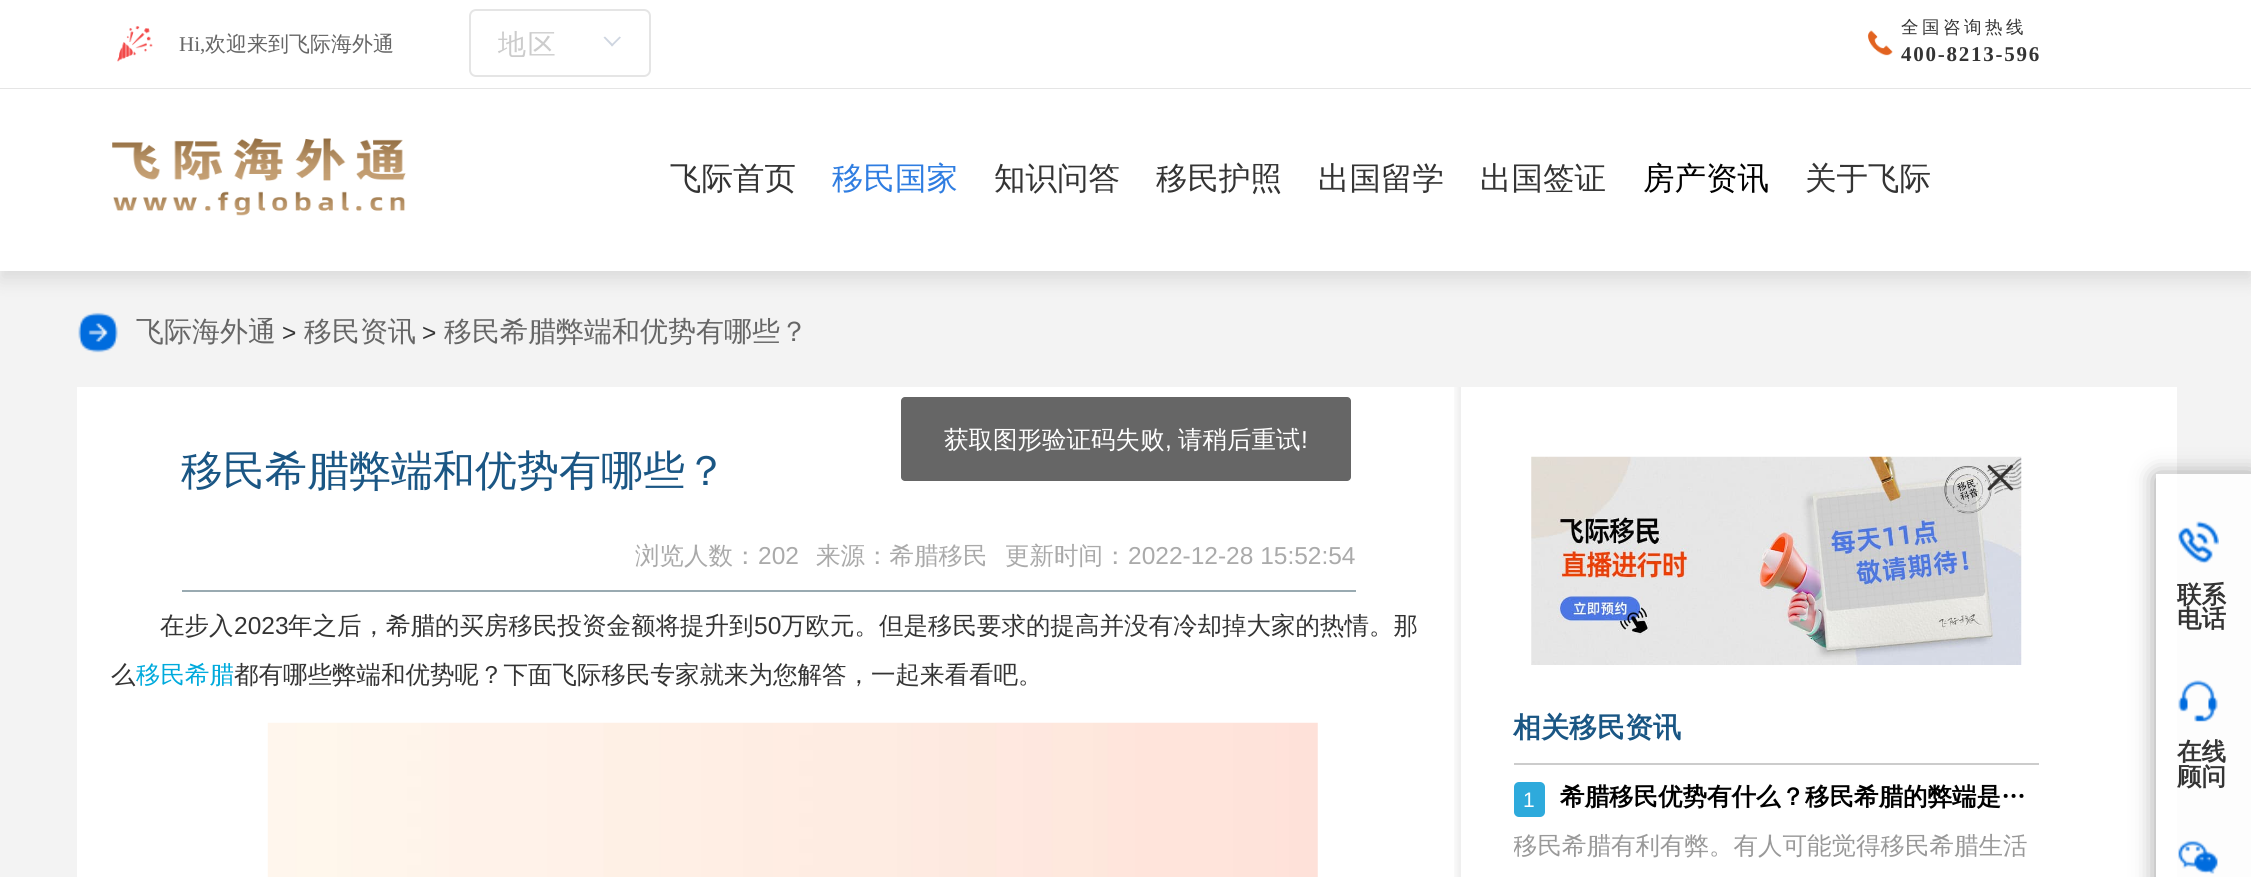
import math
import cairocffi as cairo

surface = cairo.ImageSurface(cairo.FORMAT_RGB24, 2251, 877)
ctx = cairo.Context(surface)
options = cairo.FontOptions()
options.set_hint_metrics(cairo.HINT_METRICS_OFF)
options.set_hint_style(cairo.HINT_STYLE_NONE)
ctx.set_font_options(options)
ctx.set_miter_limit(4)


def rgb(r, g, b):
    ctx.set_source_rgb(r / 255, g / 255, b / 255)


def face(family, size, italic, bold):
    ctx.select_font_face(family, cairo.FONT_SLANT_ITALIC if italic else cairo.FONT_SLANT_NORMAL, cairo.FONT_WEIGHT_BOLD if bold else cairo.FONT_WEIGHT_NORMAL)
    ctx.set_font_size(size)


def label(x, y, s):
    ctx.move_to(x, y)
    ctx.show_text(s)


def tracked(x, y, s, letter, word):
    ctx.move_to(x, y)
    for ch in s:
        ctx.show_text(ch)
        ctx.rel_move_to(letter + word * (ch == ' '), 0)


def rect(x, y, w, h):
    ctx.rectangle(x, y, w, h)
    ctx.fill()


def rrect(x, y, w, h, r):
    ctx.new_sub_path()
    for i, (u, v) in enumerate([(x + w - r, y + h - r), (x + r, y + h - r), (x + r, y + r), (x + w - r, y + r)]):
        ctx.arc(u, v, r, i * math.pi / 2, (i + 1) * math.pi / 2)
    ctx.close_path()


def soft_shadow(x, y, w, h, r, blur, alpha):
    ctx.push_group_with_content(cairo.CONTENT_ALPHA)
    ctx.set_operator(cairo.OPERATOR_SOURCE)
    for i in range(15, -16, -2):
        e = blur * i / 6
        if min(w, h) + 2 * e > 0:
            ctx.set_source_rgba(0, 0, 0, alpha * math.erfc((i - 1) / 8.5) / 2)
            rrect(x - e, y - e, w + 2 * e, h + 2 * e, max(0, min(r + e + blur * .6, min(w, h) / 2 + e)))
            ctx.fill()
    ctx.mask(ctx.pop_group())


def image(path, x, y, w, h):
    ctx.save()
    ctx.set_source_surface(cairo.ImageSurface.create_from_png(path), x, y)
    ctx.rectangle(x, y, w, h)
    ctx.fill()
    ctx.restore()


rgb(243, 243, 243)
ctx.paint()
rgb(0, 0, 0)
soft_shadow(0, 9, 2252, 271, 0, 9, 0.1)
rgb(255, 255, 255)
rect(0, 0, 2251, 88)
image('image0.png', 117, 26, 36, 36)
face('Liberation Serif', 21, 0, 0)
rgb(102, 102, 102)
label(179, 51, 'Hi,')
face('WenQuanYi Zen Hei Medium', 21, 0, 0)
label(205, 51, '欢迎来到飞际海外通')
rrect(470, 10, 180, 66, 6)
rgb(229, 229, 229)
ctx.stroke()
face('WenQuanYi Zen Hei Medium', 28, 0, 0)
rgb(204, 204, 204)
tracked(498, 54, '地区', 1.75, 0)
rgb(206, 213, 224)
ctx.new_path()
ctx.move_to(619.5, 36.5)
ctx.line_to(621, 37.5)
ctx.line_to(612, 46.5)
ctx.line_to(611, 45)
ctx.close_path()
ctx.fill()
ctx.new_path()
ctx.move_to(605, 36.5)
ctx.line_to(613.5, 45)
ctx.line_to(612, 46.5)
ctx.line_to(603.5, 37.5)
ctx.close_path()
ctx.fill()
image('image1.png', 1867, 30, 26, 26)
face('WenQuanYi Zen Hei Medium', 17.5, 0, 0)
rgb(52, 52, 52)
tracked(1901, 33, '全国咨询热线', 3.5, 0)
face('Liberation Serif', 21, 0, 1)
tracked(1901, 61, '400-8213-596', 1.75, 0)
rgb(229, 229, 229)
rect(0, 88, 2251, 1)
rgb(255, 255, 255)
rect(0, 89, 2251, 182)
image('image2.png', 112, 138, 294, 78)
face('WenQuanYi Zen Hei Medium', 31.5, 0, 0)
rgb(52, 52, 52)
label(670, 189, '飞际首页')
rgb(47, 125, 225)
label(832, 189, '移民国家')
rgb(52, 52, 52)
label(994, 189, '知识问答')
label(1156, 189, '移民护照')
label(1318, 189, '出国留学')
label(1480, 189, '出国签证')
rgb(0, 0, 0)
label(1643, 189, '房产资讯')
rgb(52, 52, 52)
label(1805, 189, '关于飞际')
image('image3.png', 78, 312, 40, 41)
face('WenQuanYi Zen Hei Medium', 28, 0, 0)
rgb(102, 102, 102)
label(136, 341, '飞际海外通')
face('Liberation Sans', 24.5, 0, 0)
rgb(52, 52, 52)
label(282, 341, '>')
face('WenQuanYi Zen Hei Medium', 28, 0, 0)
rgb(102, 102, 102)
label(304, 341, '移民资讯')
face('Liberation Sans', 24.5, 0, 0)
rgb(52, 52, 52)
label(422, 341, '>')
face('WenQuanYi Zen Hei Medium', 28, 0, 0)
rgb(102, 102, 102)
label(444, 341, '移民希腊弊端和优势有哪些？')
rgb(255, 255, 255)
rect(77, 387, 2100, 490)
rgb(153, 170, 177)
rect(182, 590, 1174, 2)
face('WenQuanYi Zen Hei Medium', 42, 0, 0)
rgb(26, 86, 132)
label(181, 485, '移民希腊弊端和优势有哪些？')
face('WenQuanYi Zen Hei Medium', 24.5, 0, 0)
rgb(170, 170, 170)
label(635, 564, '浏览人数：')
face('Liberation Sans', 24.5, 0, 0)
label(758, 564, '202')
face('WenQuanYi Zen Hei Medium', 24.5, 0, 0)
label(816, 564, '来源：希腊移民')
label(1005, 564, '更新时间：')
face('Liberation Sans', 24.5, 0, 0)
label(1128, 564, '2022-12-28 15:52:54')
face('WenQuanYi Zen Hei Medium', 24.5, 0, 0)
rgb(52, 52, 52)
label(160, 634, '在步入')
face('Liberation Sans', 24.5, 0, 0)
label(234, 634, '2023')
face('WenQuanYi Zen Hei Medium', 24.5, 0, 0)
label(288, 634, '年之后，希腊的买房移民投资金额将提升到')
face('Liberation Sans', 24.5, 0, 0)
label(754, 634, '50')
face('WenQuanYi Zen Hei Medium', 24.5, 0, 0)
label(781, 634, '万欧元。但是移民要求的提高并没有冷却掉大家的热情。那')
label(111, 683, '么')
rgb(0, 170, 220)
label(136, 683, '移民希腊')
rgb(52, 52, 52)
label(234, 683, '都有哪些弊端和优势呢？下面飞际移民专家就来为您解答，一起来看看吧。')
image('image4.png', 267, 722, 1051, 155)
image('image5.png', 1454, 387, 7, 490)
image('image6.png', 1531, 456, 491, 209)
image('image7.png', 1987, 464, 27, 27)
rgb(204, 204, 204)
rect(1514, 763, 525, 2)
face('WenQuanYi Zen Hei', 28, 0, 1)
rgb(26, 86, 132)
label(1513, 737, '相关移民资讯')
rgb(46, 170, 220)
rrect(1514, 782, 31, 35, 5)
ctx.fill()
face('Liberation Sans', 21, 0, 0)
rgb(255, 255, 255)
label(1523, 807, '1')
face('WenQuanYi Zen Hei', 24.5, 0, 1)
rgb(0, 0, 0)
label(1560, 805, '希腊移民优势有什么？移民希腊的弊端是…')
ctx.save()
ctx.rectangle(1514, 828, 525, 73)
ctx.clip()
face('WenQuanYi Zen Hei Medium', 24.5, 0, 0)
rgb(153, 153, 153)
label(1513, 854, '移民希腊有利有弊。有人可能觉得移民希腊生活')
ctx.restore()
ctx.save()
ctx.set_fill_rule(cairo.FILL_RULE_EVEN_ODD)
ctx.new_path()
ctx.move_to(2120, 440)
ctx.line_to(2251, 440)
ctx.line_to(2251, 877)
ctx.line_to(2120, 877)
ctx.close_path()
ctx.move_to(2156, 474)
ctx.line_to(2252, 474)
ctx.line_to(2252, 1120)
ctx.line_to(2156, 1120)
ctx.close_path()
ctx.clip()
rgb(0, 0, 0)
soft_shadow(2156, 476, 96, 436, 0, 11.5, 0.4)
ctx.restore()
ctx.set_source_rgba(1, 1, 1, 0.8)
rect(2156, 474, 95, 403)
image('image8.png', 2178, 521, 41, 43)
rgb(52, 52, 52)
label(2177, 603, '联系')
label(2177, 627, '电话')
image('image9.png', 2178, 680, 40, 42)
label(2177, 760, '在线')
label(2177, 785, '顾问')
image('image10.png', 2178, 840, 40, 34)
rgb(102, 102, 102)
rrect(901, 397, 450, 84, 4)
ctx.fill()
face('WenQuanYi Zen Hei Medium', 24.5, 0, 0)
rgb(255, 255, 255)
label(944, 448, '获取图形验证码失败')
face('Liberation Sans', 24.5, 0, 0)
label(1165, 448, ',')
face('WenQuanYi Zen Hei Medium', 24.5, 0, 0)
label(1178, 448, '请稍后重试')
face('Liberation Sans', 24.5, 0, 0)
label(1301, 448, '!')
surface.write_to_png('render.png')
